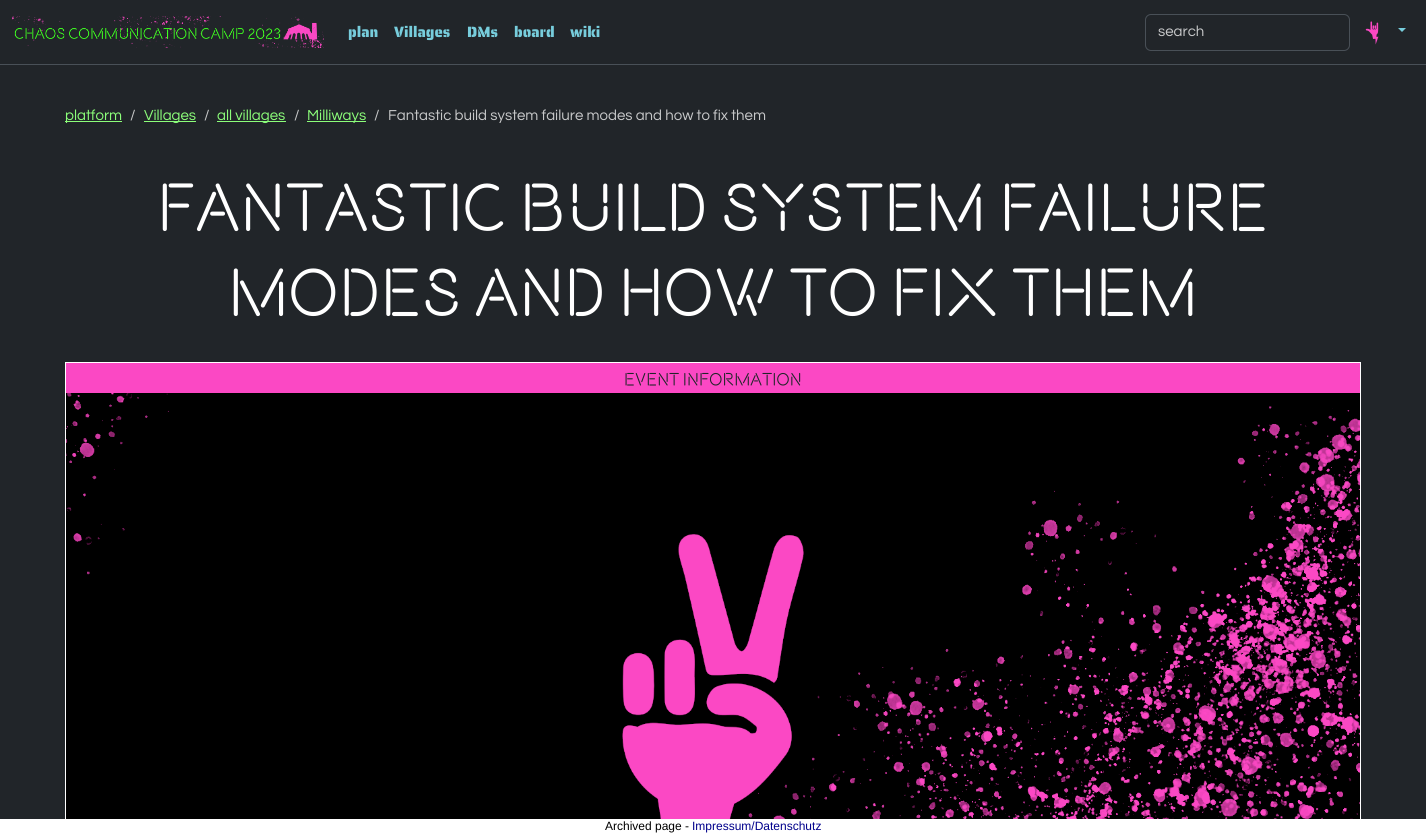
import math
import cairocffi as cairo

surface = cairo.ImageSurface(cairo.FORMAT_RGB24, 1426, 835)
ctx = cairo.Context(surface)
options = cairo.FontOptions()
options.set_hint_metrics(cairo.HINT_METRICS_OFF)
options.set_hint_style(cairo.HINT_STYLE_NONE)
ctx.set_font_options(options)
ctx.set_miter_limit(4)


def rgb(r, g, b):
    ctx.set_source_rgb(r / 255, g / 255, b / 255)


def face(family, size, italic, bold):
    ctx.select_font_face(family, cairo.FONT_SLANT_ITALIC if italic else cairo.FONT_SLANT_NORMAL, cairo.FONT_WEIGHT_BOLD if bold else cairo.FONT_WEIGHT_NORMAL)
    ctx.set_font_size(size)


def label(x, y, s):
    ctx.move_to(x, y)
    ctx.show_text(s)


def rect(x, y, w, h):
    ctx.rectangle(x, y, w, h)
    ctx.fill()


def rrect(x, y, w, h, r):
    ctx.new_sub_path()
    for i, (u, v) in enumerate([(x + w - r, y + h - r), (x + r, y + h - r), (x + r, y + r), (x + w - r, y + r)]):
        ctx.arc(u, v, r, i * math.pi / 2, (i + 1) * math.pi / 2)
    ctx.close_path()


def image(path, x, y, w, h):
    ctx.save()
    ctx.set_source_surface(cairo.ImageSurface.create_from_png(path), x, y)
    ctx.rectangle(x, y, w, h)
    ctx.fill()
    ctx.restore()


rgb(33, 37, 41)
ctx.paint()
rgb(73, 80, 87)
rect(0, 64, 1426, 1)
image('image0.png', 12, 16, 312, 32)
face('Saira Stencil One', 15, 0, 0)
rgb(119, 205, 220)
label(348, 37, 'plan')
label(394, 37, 'Villages')
label(467, 37, 'DMs')
label(514, 37, 'board')
label(570, 37, 'wiki')
rrect(1145.5, 14.5, 204, 36, 5.5)
rgb(73, 80, 87)
ctx.set_line_width(1)
ctx.stroke()
face('Questrial', 15, 0, 0)
rgb(200, 201, 202)
label(1158, 36, 'search')
image('image1.png', 1365, 21, 14, 24)
rgb(119, 205, 220)
ctx.new_path()
ctx.move_to(1398, 28)
ctx.line_to(1406, 28)
ctx.line_to(1402, 32)
ctx.close_path()
ctx.fill()
rgb(140, 255, 122)
rect(65, 121, 57, 1)
label(65, 120, 'platform')
rgb(200, 201, 202)
label(130, 120, '/')
rgb(140, 255, 122)
rect(144, 121, 52, 1)
label(144, 120, 'Villages')
rgb(200, 201, 202)
label(204, 120, '/')
rgb(140, 255, 122)
rect(217, 121, 69, 1)
label(217, 120, 'all villages')
rgb(200, 201, 202)
label(294, 120, '/')
rgb(140, 255, 122)
rect(307, 121, 59, 1)
label(307, 120, 'Milliways')
rgb(200, 201, 202)
label(374, 120, '/')
label(388, 120, 'Fantastic build system failure modes and how to fix them')
face('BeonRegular', 68, 0, 0)
rgb(255, 255, 255)
label(157, 229, 'Fantastic build system failure')
label(228, 314, 'modes and how to fix them')
ctx.rectangle(65.5, 362.5, 1295, 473)
ctx.stroke()
rgb(251, 72, 196)
rect(66, 363, 1294, 30)
face('BeonRegular', 18, 0, 0)
rgb(33, 37, 41)
label(624, 385, 'Event Information')
image('image2.png', 66, 393, 1294, 426)
rgb(255, 255, 255)
rect(0, 819, 1426, 16)
face('Liberation Sans', 12, 0, 0)
rgb(0, 0, 0)
label(605, 830, 'Archived page -')
rgb(0, 0, 139)
label(692, 830, 'Impressum/Datenschutz')
surface.write_to_png('render.png')
